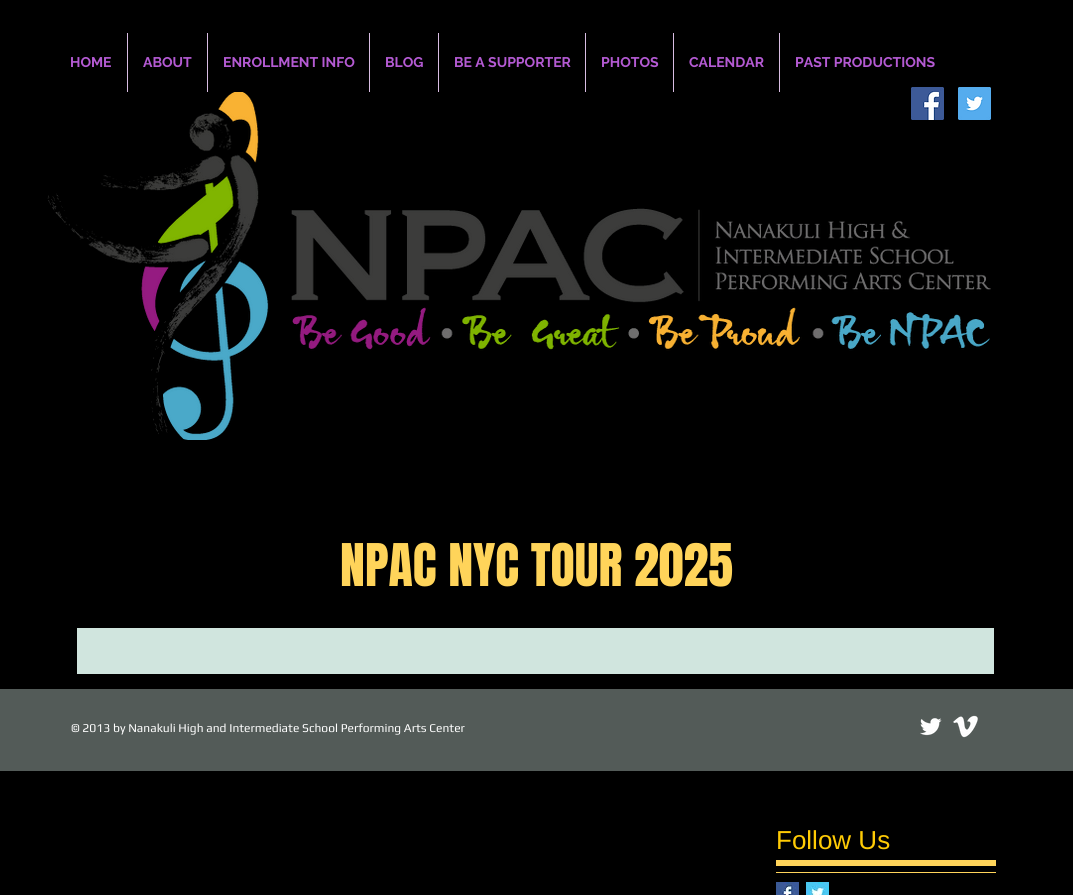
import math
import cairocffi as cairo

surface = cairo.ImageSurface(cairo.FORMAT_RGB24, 1073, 895)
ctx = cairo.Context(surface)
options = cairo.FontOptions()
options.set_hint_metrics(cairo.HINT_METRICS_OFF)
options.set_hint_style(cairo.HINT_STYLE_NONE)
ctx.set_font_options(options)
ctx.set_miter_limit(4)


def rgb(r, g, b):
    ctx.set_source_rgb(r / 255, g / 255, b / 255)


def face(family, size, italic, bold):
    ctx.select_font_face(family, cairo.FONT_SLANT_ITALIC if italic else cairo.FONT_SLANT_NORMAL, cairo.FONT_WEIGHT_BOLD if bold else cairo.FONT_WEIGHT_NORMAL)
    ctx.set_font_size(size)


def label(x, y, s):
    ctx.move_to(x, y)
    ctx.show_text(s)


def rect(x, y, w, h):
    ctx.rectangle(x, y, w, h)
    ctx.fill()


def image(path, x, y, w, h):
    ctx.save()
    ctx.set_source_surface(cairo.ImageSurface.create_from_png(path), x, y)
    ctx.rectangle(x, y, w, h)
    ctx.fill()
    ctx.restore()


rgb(0, 0, 0)
ctx.paint()
face('Raleway', 14, 0, 1)
rgb(180, 90, 211)
label(70, 67, 'HOME')
rgb(216, 189, 226)
rect(127, 33, 1, 59)
rgb(180, 90, 211)
label(143, 67, 'ABOUT')
rgb(216, 189, 226)
rect(207, 33, 1, 59)
rgb(180, 90, 211)
label(223, 67, 'ENROLLMENT INFO')
rgb(216, 189, 226)
rect(369, 33, 1, 59)
rgb(180, 90, 211)
label(385, 67, 'BLOG')
rgb(216, 189, 226)
rect(438, 33, 1, 59)
rgb(180, 90, 211)
label(454, 67, 'BE A SUPPORTER')
rgb(216, 189, 226)
rect(585, 33, 1, 59)
rgb(180, 90, 211)
label(601, 67, 'PHOTOS')
rgb(216, 189, 226)
rect(673, 33, 1, 59)
rgb(180, 90, 211)
label(689, 67, 'CALENDAR')
rgb(216, 189, 226)
rect(779, 33, 1, 59)
rgb(180, 90, 211)
label(795, 67, 'PAST PRODUCTIONS')
image('image0.png', 911, 87, 33, 33)
image('image1.png', 958, 87, 33, 33)
image('image2.png', 47, 92, 944, 348)
rgb(83, 91, 88)
rect(0, 689, 1073, 82)
face('Play', 12, 0, 0)
rgb(255, 255, 255)
label(71, 732, '© 2013 by Nanakuli High and Intermediate School Performing Arts Center')
image('image3.png', 920, 718, 22, 18)
image('image4.png', 953, 715, 25, 23)
face('Anton', 50, 0, 0)
rgb(255, 212, 90)
label(340, 586, 'NPAC NYC TOUR 2025')
rgb(208, 229, 222)
rect(77, 628, 917, 46)
face('Liberation Sans', 26, 0, 0)
rgb(255, 203, 5)
label(776, 849, 'Follow Us')
rgb(255, 212, 90)
rect(776, 860, 220, 6)
rect(776, 872, 220, 1)
image('image5.png', 776, 882, 23, 13)
image('image6.png', 806, 882, 23, 13)
surface.write_to_png('render.png')
